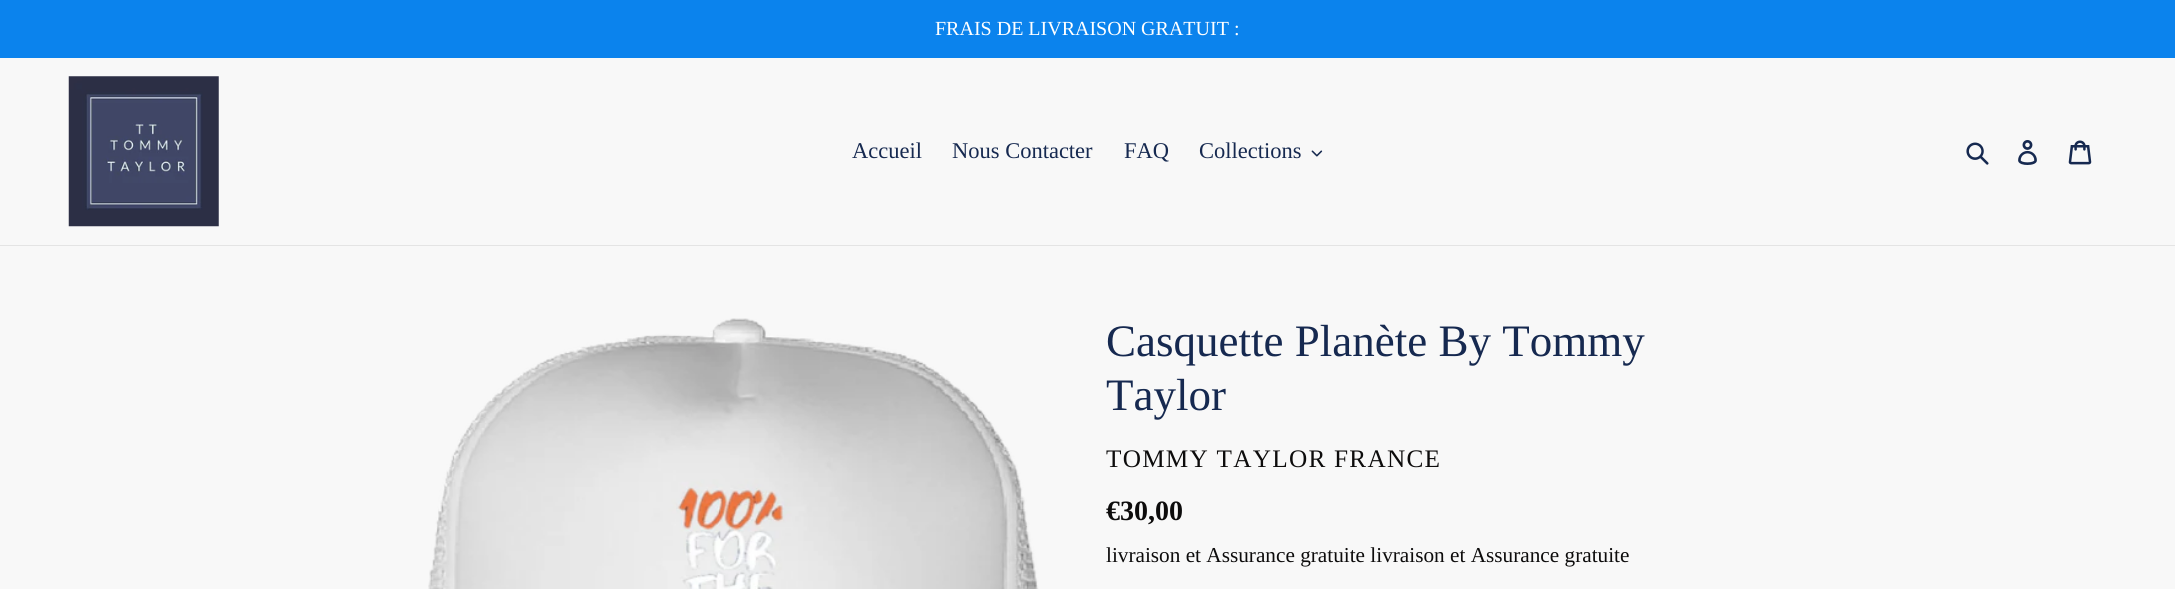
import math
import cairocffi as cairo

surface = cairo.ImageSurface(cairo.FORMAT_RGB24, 2175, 589)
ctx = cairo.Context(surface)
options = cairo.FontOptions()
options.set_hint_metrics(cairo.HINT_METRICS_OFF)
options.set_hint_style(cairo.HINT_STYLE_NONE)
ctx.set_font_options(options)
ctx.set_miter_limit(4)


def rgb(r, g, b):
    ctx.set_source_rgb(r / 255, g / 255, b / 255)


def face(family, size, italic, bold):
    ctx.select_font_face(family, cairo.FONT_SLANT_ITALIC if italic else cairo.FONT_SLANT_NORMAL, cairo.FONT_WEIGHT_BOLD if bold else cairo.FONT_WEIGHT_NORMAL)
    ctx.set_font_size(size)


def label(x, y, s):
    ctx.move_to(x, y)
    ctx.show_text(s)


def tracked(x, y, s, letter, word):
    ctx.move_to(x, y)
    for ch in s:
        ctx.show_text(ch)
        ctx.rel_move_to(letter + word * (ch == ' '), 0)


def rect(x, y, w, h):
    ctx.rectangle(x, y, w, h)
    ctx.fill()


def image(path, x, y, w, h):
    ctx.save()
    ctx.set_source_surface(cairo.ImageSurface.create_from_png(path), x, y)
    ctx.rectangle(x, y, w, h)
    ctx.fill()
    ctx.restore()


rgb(248, 248, 248)
ctx.paint()
rgb(11, 131, 237)
rect(0, 0, 2175, 58)
face('Liberation Serif', 20, 0, 0)
rgb(255, 255, 255)
label(935, 35, 'FRAIS DE LIVRAISON GRATUIT :')
rgb(228, 228, 228)
rect(0, 245, 2175, 1)
image('image0.png', 68, 76, 151, 151)
face('Liberation Serif', 22.5, 0, 0)
rgb(22, 41, 80)
label(852, 158, 'Accueil')
label(952, 158, 'Nous Contacter')
label(1124, 158, 'FAQ')
label(1199, 158, 'Collections')
image('image1.png', 1311, 150, 12, 7)
image('image2.png', 1966, 142, 23, 23)
image('image3.png', 2018, 140, 19, 25)
image('image4.png', 2068, 140, 24, 25)
image('image5.png', 428, 318, 611, 271)
face('Liberation Serif', 45, 0, 0)
label(1106, 356, 'Casquette Planète By Tommy')
label(1106, 410, 'Taylor')
face('Liberation Serif', 25.25, 0, 0)
rgb(13, 12, 12)
tracked(1106, 467, 'TOMMY TAYLOR FRANCE', 1.25, 0)
face('Liberation Serif', 28, 0, 1)
label(1106, 520, '€30,00')
face('Liberation Serif', 21.25, 0, 0)
label(1106, 562, 'livraison et Assurance gratuite livraison et Assurance gratuite')
surface.write_to_png('render.png')
